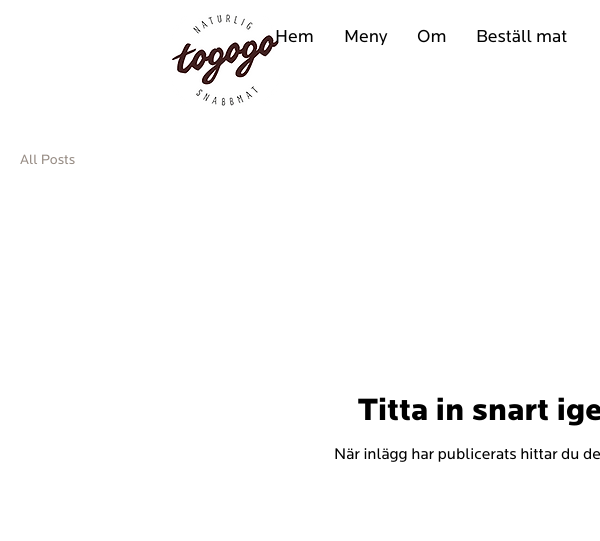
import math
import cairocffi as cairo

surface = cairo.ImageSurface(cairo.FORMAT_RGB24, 600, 541)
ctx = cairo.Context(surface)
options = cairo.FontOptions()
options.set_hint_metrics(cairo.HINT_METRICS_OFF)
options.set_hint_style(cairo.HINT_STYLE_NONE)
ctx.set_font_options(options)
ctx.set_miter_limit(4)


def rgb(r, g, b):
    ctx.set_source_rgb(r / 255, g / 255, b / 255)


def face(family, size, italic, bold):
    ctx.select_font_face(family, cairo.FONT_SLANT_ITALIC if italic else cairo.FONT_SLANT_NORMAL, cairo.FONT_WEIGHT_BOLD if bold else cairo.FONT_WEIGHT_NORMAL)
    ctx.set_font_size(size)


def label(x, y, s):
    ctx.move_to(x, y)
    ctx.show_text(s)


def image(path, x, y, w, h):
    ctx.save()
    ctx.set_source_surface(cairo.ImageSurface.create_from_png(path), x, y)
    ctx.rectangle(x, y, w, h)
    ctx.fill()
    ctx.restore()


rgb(255, 255, 255)
ctx.paint()
image('image0.png', 172, 14, 109, 92)
face('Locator', 18, 0, 0)
rgb(0, 0, 0)
label(275, 42, 'Hem')
label(344, 42, 'Meny')
label(417, 42, 'Om')
label(476, 42, 'Beställ mat')
face('Locator', 14, 0, 0)
rgb(149, 138, 130)
label(20, 164, 'All Posts')
face('Locator Black', 32, 0, 0)
rgb(0, 0, 0)
label(358, 420, 'Titta in snart ige')
face('Locator', 16, 0, 0)
label(334, 459, 'När inlägg har publicerats hittar du de')
surface.write_to_png('render.png')
